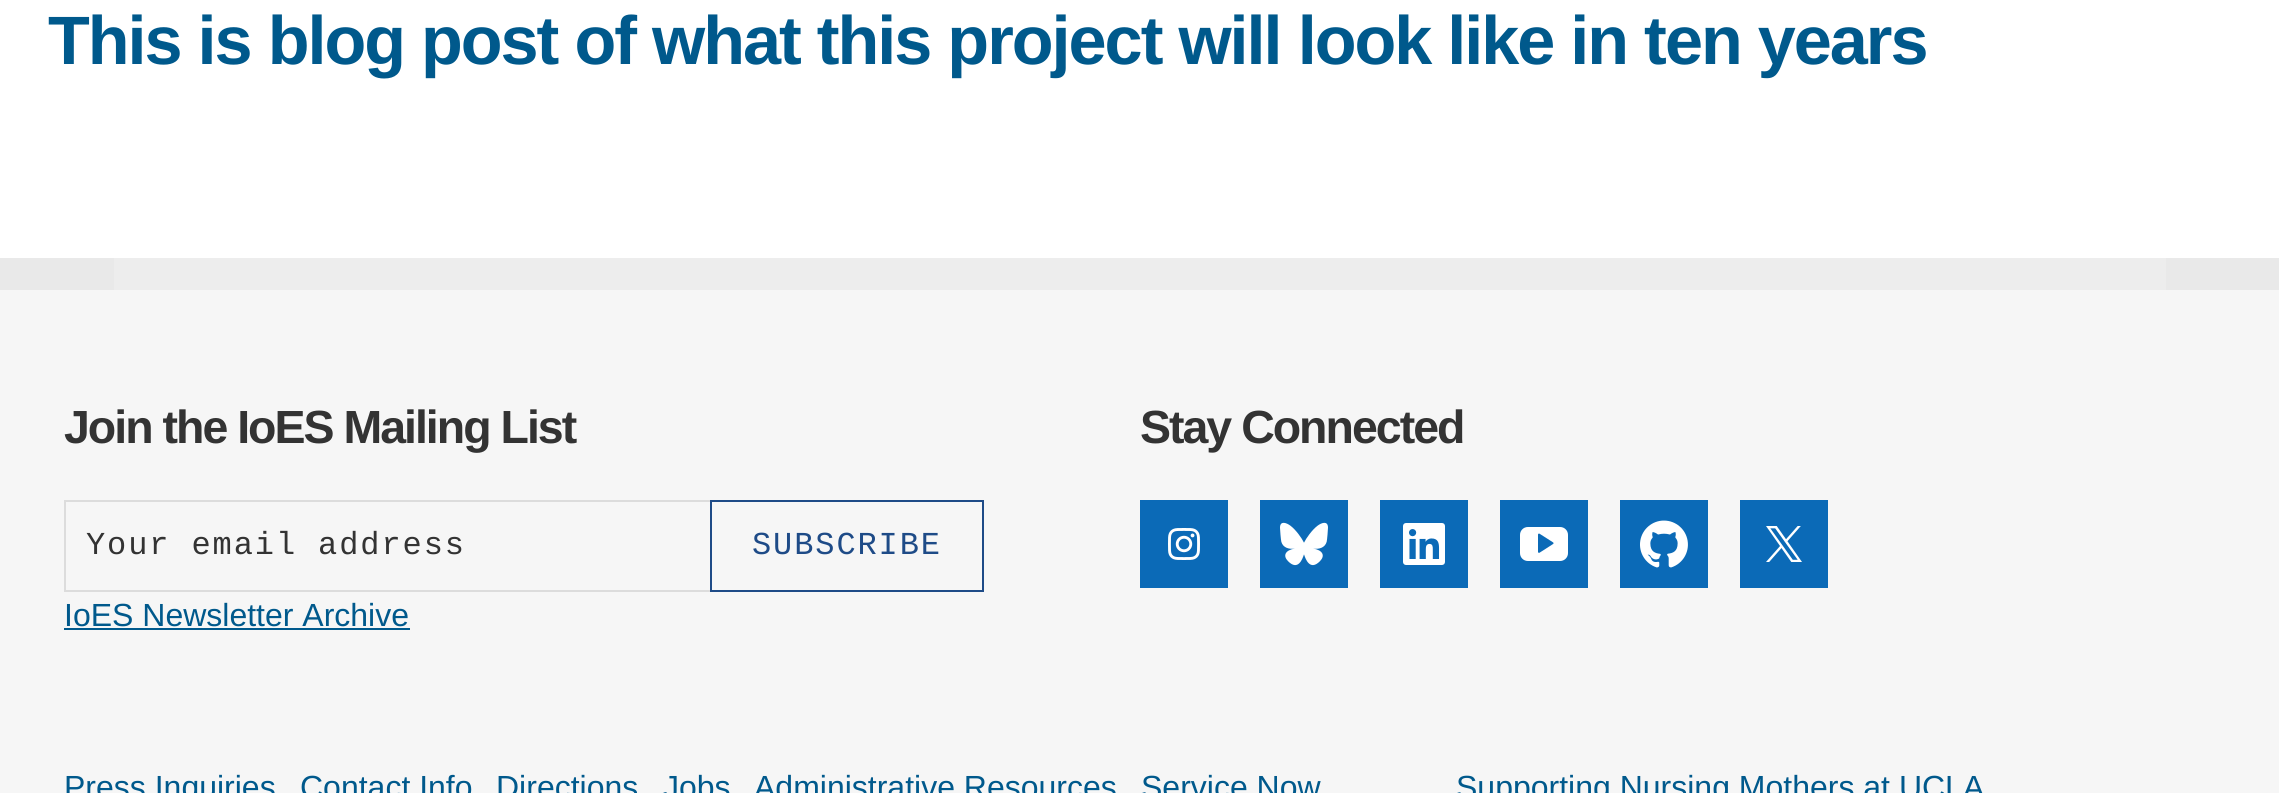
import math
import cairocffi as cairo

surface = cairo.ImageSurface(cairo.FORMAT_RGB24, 2279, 793)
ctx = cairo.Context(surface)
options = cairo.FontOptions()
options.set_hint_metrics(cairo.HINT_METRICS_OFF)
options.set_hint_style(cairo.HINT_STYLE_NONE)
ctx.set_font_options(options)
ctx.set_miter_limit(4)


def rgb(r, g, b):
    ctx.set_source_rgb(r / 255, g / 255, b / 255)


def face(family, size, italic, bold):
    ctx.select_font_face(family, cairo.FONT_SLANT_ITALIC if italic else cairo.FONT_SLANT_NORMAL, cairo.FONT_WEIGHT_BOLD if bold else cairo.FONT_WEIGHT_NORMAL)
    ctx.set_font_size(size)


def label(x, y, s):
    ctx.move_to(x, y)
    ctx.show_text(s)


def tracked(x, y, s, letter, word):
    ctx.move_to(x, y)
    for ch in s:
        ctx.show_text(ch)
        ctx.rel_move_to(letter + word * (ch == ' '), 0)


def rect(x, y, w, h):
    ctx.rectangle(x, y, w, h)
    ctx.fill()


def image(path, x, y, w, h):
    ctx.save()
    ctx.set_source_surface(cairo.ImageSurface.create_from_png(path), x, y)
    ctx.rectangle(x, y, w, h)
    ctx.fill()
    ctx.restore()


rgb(233, 233, 233)
ctx.paint()
rgb(255, 255, 255)
rect(0, 0, 2279, 258)
face('Liberation Sans', 68.4, 0, 1)
rgb(0, 89, 140)
tracked(48, 64, 'This is blog post of what this project will look like in ten years', -2, 0)
rgb(237, 237, 237)
rect(114, 258, 2052, 32)
rgb(246, 246, 246)
rect(0, 290, 2279, 503)
face('Liberation Sans', 46.5, 0, 1)
rgb(51, 51, 51)
tracked(64, 443, 'Join the IoES Mailing List', -2, 0)
rgb(220, 220, 220)
rect(64, 500, 646, 2)
rect(64, 590, 646, 2)
rect(64, 500, 2, 92)
face('Liberation Mono', 32, 0, 0)
rgb(51, 51, 51)
tracked(86, 554, 'Your email address', 1.9, 0)
ctx.rectangle(711, 501, 272, 90)
rgb(30, 75, 135)
ctx.stroke()
tracked(752, 554, 'SUBSCRIBE', 1.9, 0)
face('Liberation Sans', 32, 0, 0)
rgb(0, 89, 140)
label(64, 626, 'IoES Newsletter Archive')
rect(64, 628, 346, 2)
face('Liberation Sans', 46.5, 0, 1)
rgb(51, 51, 51)
tracked(1140, 443, 'Stay Connected', -2, 0)
rgb(11, 106, 183)
rect(1140, 500, 88, 88)
image('image0.png', 1168, 528, 32, 32)
rect(1260, 500, 88, 88)
image('image1.png', 1280, 522, 48, 44)
rect(1380, 500, 88, 88)
image('image2.png', 1403, 523, 42, 42)
rect(1500, 500, 88, 88)
image('image3.png', 1520, 527, 48, 34)
rect(1620, 500, 88, 88)
image('image4.png', 1640, 520, 48, 48)
rect(1740, 500, 88, 88)
image('image5.png', 1766, 526, 36, 36)
face('Liberation Sans', 32, 0, 0)
rgb(0, 89, 140)
label(64, 798, 'Press Inquiries')
label(300, 798, 'Contact Info')
label(496, 798, 'Directions')
label(663, 798, 'Jobs')
label(754, 798, 'Administrative Resources')
label(1141, 798, 'Service Now')
label(1456, 798, 'Supporting Nursing Mothers at UCLA')
surface.write_to_png('render.png')
